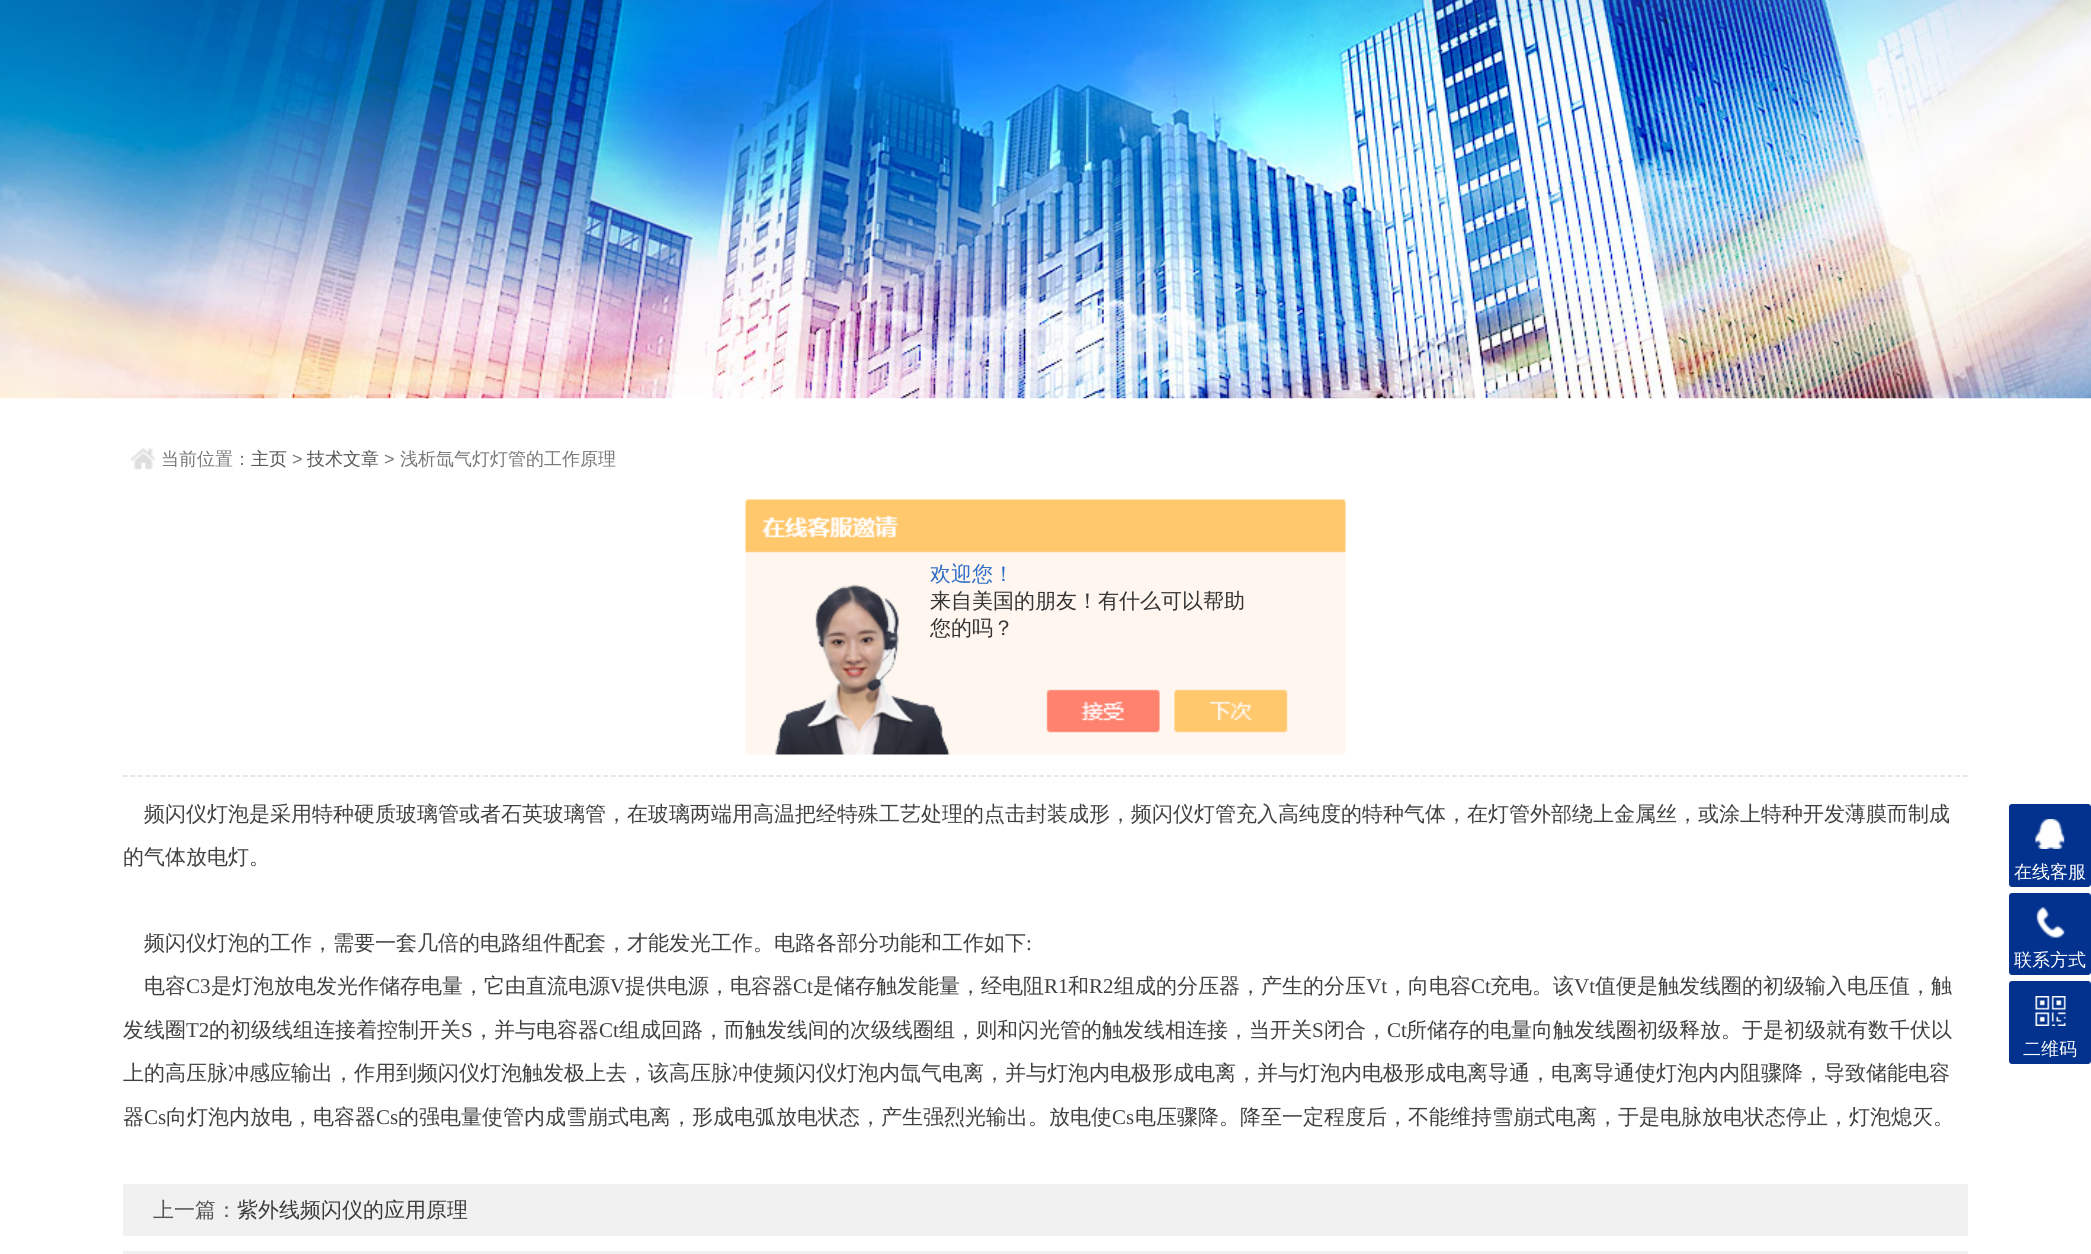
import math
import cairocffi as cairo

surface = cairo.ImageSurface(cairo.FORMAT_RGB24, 2091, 1254)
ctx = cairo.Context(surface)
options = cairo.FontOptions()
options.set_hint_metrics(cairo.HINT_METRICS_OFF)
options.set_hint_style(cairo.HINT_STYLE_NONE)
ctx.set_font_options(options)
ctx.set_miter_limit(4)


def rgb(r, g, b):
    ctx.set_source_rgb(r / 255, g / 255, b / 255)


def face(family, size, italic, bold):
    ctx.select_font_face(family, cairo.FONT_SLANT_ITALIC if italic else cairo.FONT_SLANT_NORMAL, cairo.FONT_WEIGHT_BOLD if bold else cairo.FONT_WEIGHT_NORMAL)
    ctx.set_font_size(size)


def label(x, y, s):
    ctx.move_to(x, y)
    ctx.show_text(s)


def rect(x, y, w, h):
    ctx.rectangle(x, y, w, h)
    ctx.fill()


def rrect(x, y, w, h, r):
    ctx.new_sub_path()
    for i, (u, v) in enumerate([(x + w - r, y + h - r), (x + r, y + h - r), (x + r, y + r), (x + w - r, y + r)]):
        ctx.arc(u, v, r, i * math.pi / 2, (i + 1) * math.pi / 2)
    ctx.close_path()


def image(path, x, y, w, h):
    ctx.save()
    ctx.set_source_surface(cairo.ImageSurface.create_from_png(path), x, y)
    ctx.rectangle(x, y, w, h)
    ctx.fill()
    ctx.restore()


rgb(255, 255, 255)
ctx.paint()
image('image0.png', 0, 0, 2091, 399)
image('image1.png', 130, 448, 25, 22)
face('WenQuanYi Zen Hei Medium', 18, 0, 0)
rgb(119, 119, 119)
label(161, 465, '当前位置：')
rgb(85, 85, 85)
label(251, 465, '主页')
face('Liberation Sans', 18, 0, 0)
rgb(119, 119, 119)
label(292, 465, '>')
face('WenQuanYi Zen Hei Medium', 18, 0, 0)
rgb(85, 85, 85)
label(307, 465, '技术文章')
face('Liberation Sans', 18, 0, 0)
rgb(119, 119, 119)
label(384, 465, '>')
face('WenQuanYi Zen Hei Medium', 18, 0, 0)
label(400, 465, '浅析氙气灯灯管的工作原理')
ctx.new_path()
ctx.move_to(123, 776)
ctx.line_to(1968, 776)
rgb(222, 222, 222)
ctx.set_line_width(1.5)
ctx.set_dash([4.5, 3.01])
ctx.stroke()
face('WenQuanYi Zen Hei Medium', 21, 0, 0)
rgb(64, 64, 64)
label(144, 821, '频闪仪灯泡是采用特种硬质玻璃管或者石英玻璃管，在玻璃两端用高温把经特殊工艺处理的点击封装成形，频闪仪灯管充入高纯度的特种气体，在灯管外部绕上金属丝，或涂上特种开发薄膜而制成')
label(123, 864, '的气体放电灯。')
label(144, 950, '频闪仪灯泡的工作，需要一套几倍的电路组件配套，才能发光工作。电路各部分功能和工作如下')
face('Liberation Serif', 21, 0, 0)
label(1026, 950, ':')
face('WenQuanYi Zen Hei Medium', 21, 0, 0)
label(144, 993, '电容')
face('Liberation Serif', 21, 0, 0)
label(186, 993, 'C3')
face('WenQuanYi Zen Hei Medium', 21, 0, 0)
label(211, 993, '是灯泡放电发光作储存电量，它由直流电源')
face('Liberation Serif', 21, 0, 0)
label(610, 993, 'V')
face('WenQuanYi Zen Hei Medium', 21, 0, 0)
label(625, 993, '提供电源，电容器')
face('Liberation Serif', 21, 0, 0)
label(793, 993, 'Ct')
face('WenQuanYi Zen Hei Medium', 21, 0, 0)
label(813, 993, '是储存触发能量，经电阻')
face('Liberation Serif', 21, 0, 0)
label(1044, 993, 'R1')
face('WenQuanYi Zen Hei Medium', 21, 0, 0)
label(1068, 993, '和')
face('Liberation Serif', 21, 0, 0)
label(1089, 993, 'R2')
face('WenQuanYi Zen Hei Medium', 21, 0, 0)
label(1114, 993, '组成的分压器，产生的分压')
face('Liberation Serif', 21, 0, 0)
label(1366, 993, 'Vt')
face('WenQuanYi Zen Hei Medium', 21, 0, 0)
label(1387, 993, '，向电容')
face('Liberation Serif', 21, 0, 0)
label(1471, 993, 'Ct')
face('WenQuanYi Zen Hei Medium', 21, 0, 0)
label(1490, 993, '充电。该')
face('Liberation Serif', 21, 0, 0)
label(1574, 993, 'Vt')
face('WenQuanYi Zen Hei Medium', 21, 0, 0)
label(1595, 993, '值便是触发线圈的初级输入电压值，触')
label(123, 1037, '发线圈')
face('Liberation Serif', 21, 0, 0)
label(186, 1037, 'T2')
face('WenQuanYi Zen Hei Medium', 21, 0, 0)
label(209, 1037, '的初级线组连接着控制开关')
face('Liberation Serif', 21, 0, 0)
label(461, 1037, 'S')
face('WenQuanYi Zen Hei Medium', 21, 0, 0)
label(473, 1037, '，并与电容器')
face('Liberation Serif', 21, 0, 0)
label(599, 1037, 'Ct')
face('WenQuanYi Zen Hei Medium', 21, 0, 0)
label(619, 1037, '组成回路，而触发线间的次级线圈组，则和闪光管的触发线相连接，当开关')
face('Liberation Serif', 21, 0, 0)
label(1312, 1037, 'S')
face('WenQuanYi Zen Hei Medium', 21, 0, 0)
label(1324, 1037, '闭合，')
face('Liberation Serif', 21, 0, 0)
label(1387, 1037, 'Ct')
face('WenQuanYi Zen Hei Medium', 21, 0, 0)
label(1406, 1037, '所储存的电量向触发线圈初级释放。于是初级就有数千伏以')
label(123, 1080, '上的高压脉冲感应输出，作用到频闪仪灯泡触发极上去，该高压脉冲使频闪仪灯泡内氙气电离，并与灯泡内电极形成电离，并与灯泡内电极形成电离导通，电离导通使灯泡内内阻骤降，导致储能电容')
label(123, 1124, '器')
face('Liberation Serif', 21, 0, 0)
label(144, 1124, 'Cs')
face('WenQuanYi Zen Hei Medium', 21, 0, 0)
label(166, 1124, '向灯泡内放电，电容器')
face('Liberation Serif', 21, 0, 0)
label(376, 1124, 'Cs')
face('WenQuanYi Zen Hei Medium', 21, 0, 0)
label(398, 1124, '的强电量使管内成雪崩式电离，形成电弧放电状态，产生强烈光输出。放电使')
face('Liberation Serif', 21, 0, 0)
label(1112, 1124, 'Cs')
face('WenQuanYi Zen Hei Medium', 21, 0, 0)
label(1135, 1124, '电压骤降。降至一定程度后，不能维持雪崩式电离，于是电脉放电状态停止，灯泡熄灭。')
rgb(241, 241, 241)
rect(123, 1184, 1845, 52)
rgb(85, 85, 85)
label(153, 1217, '上一篇：')
rgb(58, 58, 58)
label(237, 1217, '紫外线频闪仪的应用原理')
rgb(241, 241, 241)
rect(123, 1251, 1845, 3)
image('image2.png', 745, 499, 601, 256)
rgb(46, 110, 198)
label(930, 581, '欢迎您！')
rgb(51, 51, 51)
label(930, 608, '来自美国的朋友！有什么可以帮助')
label(930, 635, '您的吗？')
rgb(2, 50, 141)
rrect(2009, 804, 82, 83, 3)
ctx.fill()
image('image3.png', 2035, 819, 30, 30)
face('WenQuanYi Zen Hei Medium', 18, 0, 0)
rgb(255, 255, 255)
label(2014, 878, '在线客服')
rgb(2, 50, 141)
rrect(2009, 893, 82, 82, 3)
ctx.fill()
image('image4.png', 2036, 907, 29, 31)
rgb(255, 255, 255)
label(2014, 966, '联系方式')
rgb(2, 50, 141)
rrect(2009, 981, 82, 83, 3)
ctx.fill()
image('image5.png', 2035, 996, 31, 30)
rgb(255, 255, 255)
label(2023, 1055, '二维码')
surface.write_to_png('render.png')
